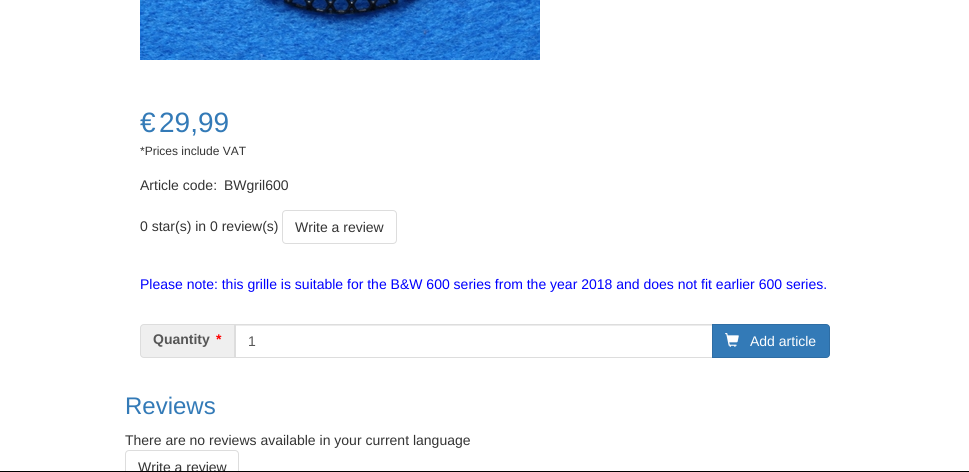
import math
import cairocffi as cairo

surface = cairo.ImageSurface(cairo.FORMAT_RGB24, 969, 472)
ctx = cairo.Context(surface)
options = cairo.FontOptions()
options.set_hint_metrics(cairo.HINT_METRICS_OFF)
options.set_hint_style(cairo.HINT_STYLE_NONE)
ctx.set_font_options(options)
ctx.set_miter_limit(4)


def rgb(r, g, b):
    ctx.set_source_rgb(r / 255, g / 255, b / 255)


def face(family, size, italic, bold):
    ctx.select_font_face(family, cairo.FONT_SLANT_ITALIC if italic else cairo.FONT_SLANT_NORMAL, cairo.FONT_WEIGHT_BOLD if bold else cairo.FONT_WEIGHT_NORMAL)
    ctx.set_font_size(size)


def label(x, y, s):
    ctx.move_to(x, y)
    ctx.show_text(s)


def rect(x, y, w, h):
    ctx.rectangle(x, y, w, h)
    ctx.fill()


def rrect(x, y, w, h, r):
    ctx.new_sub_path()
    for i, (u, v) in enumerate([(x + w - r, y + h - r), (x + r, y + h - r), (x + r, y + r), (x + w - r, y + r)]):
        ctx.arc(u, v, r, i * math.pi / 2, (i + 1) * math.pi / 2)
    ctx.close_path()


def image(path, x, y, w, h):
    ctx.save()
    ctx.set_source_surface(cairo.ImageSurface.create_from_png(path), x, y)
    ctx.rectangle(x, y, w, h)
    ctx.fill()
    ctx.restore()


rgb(255, 255, 255)
ctx.paint()
image('image0.png', 140, 0, 400, 60)
face('Liberation Sans', 28, 0, 0)
rgb(51, 122, 183)
label(140, 132, '€')
label(159, 132, '29,99')
face('Liberation Sans', 12, 0, 0)
rgb(52, 52, 52)
label(140, 155, '*Prices include VAT')
face('Liberation Sans', 14, 0, 0)
label(140, 190, 'Article code:')
label(224, 190, 'BWgril600')
label(140, 231, '0 star(s) in 0 review(s)')
rrect(282.5, 210.5, 114, 33, 3.5)
rgb(221, 221, 221)
ctx.set_line_width(1)
ctx.stroke()
rgb(52, 52, 52)
label(295, 232, 'Write a review')
rgb(0, 0, 255)
label(140, 289, 'Please note: this grille is suitable for the B&W 600 series from the year 2018 and does not fit earlier 600 series.')
rgb(239, 239, 239)
ctx.new_path()
ctx.move_to(144, 324.5)
ctx.line_to(234.5, 324.5)
ctx.line_to(234.5, 357.5)
ctx.line_to(144, 357.5)
ctx.curve_to(142, 357.5, 140.5, 356, 140.5, 354)
ctx.line_to(140.5, 328)
ctx.curve_to(140.5, 326, 142, 324.5, 144, 324.5)
ctx.close_path()
ctx.fill_preserve()
rgb(221, 221, 221)
ctx.stroke()
face('Liberation Sans', 14, 0, 1)
rgb(86, 86, 86)
label(153, 344, 'Quantity')
rgb(255, 0, 0)
label(216, 344, '*')
rgb(236, 236, 236)
rect(236, 325, 476, 1)
ctx.rectangle(235.5, 324.5, 477, 33)
rgb(221, 221, 221)
ctx.stroke()
face('Liberation Sans', 14, 0, 0)
rgb(86, 86, 86)
label(248, 346, '1')
rgb(51, 122, 183)
ctx.new_path()
ctx.move_to(712.5, 324.5)
ctx.line_to(826, 324.5)
ctx.curve_to(828, 324.5, 829.5, 326, 829.5, 328)
ctx.line_to(829.5, 354)
ctx.curve_to(829.5, 356, 828, 357.5, 826, 357.5)
ctx.line_to(712.5, 357.5)
ctx.close_path()
ctx.fill_preserve()
rgb(46, 109, 164)
ctx.stroke()
image('image1.png', 725, 333, 14, 14)
rgb(254, 254, 254)
label(750, 346, 'Add article')
face('Liberation Sans', 24, 0, 0)
rgb(51, 122, 183)
label(125, 414, 'Reviews')
face('Liberation Sans', 14, 0, 0)
rgb(52, 52, 52)
label(125, 445, 'There are no reviews available in your current language')
rrect(125.5, 450.5, 113, 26, 3.5)
rgb(221, 221, 221)
ctx.stroke()
rgb(52, 52, 52)
label(138, 472, 'Write a review')
rgb(0, 0, 0)
rect(0, 471, 969, 1)
surface.write_to_png('render.png')
